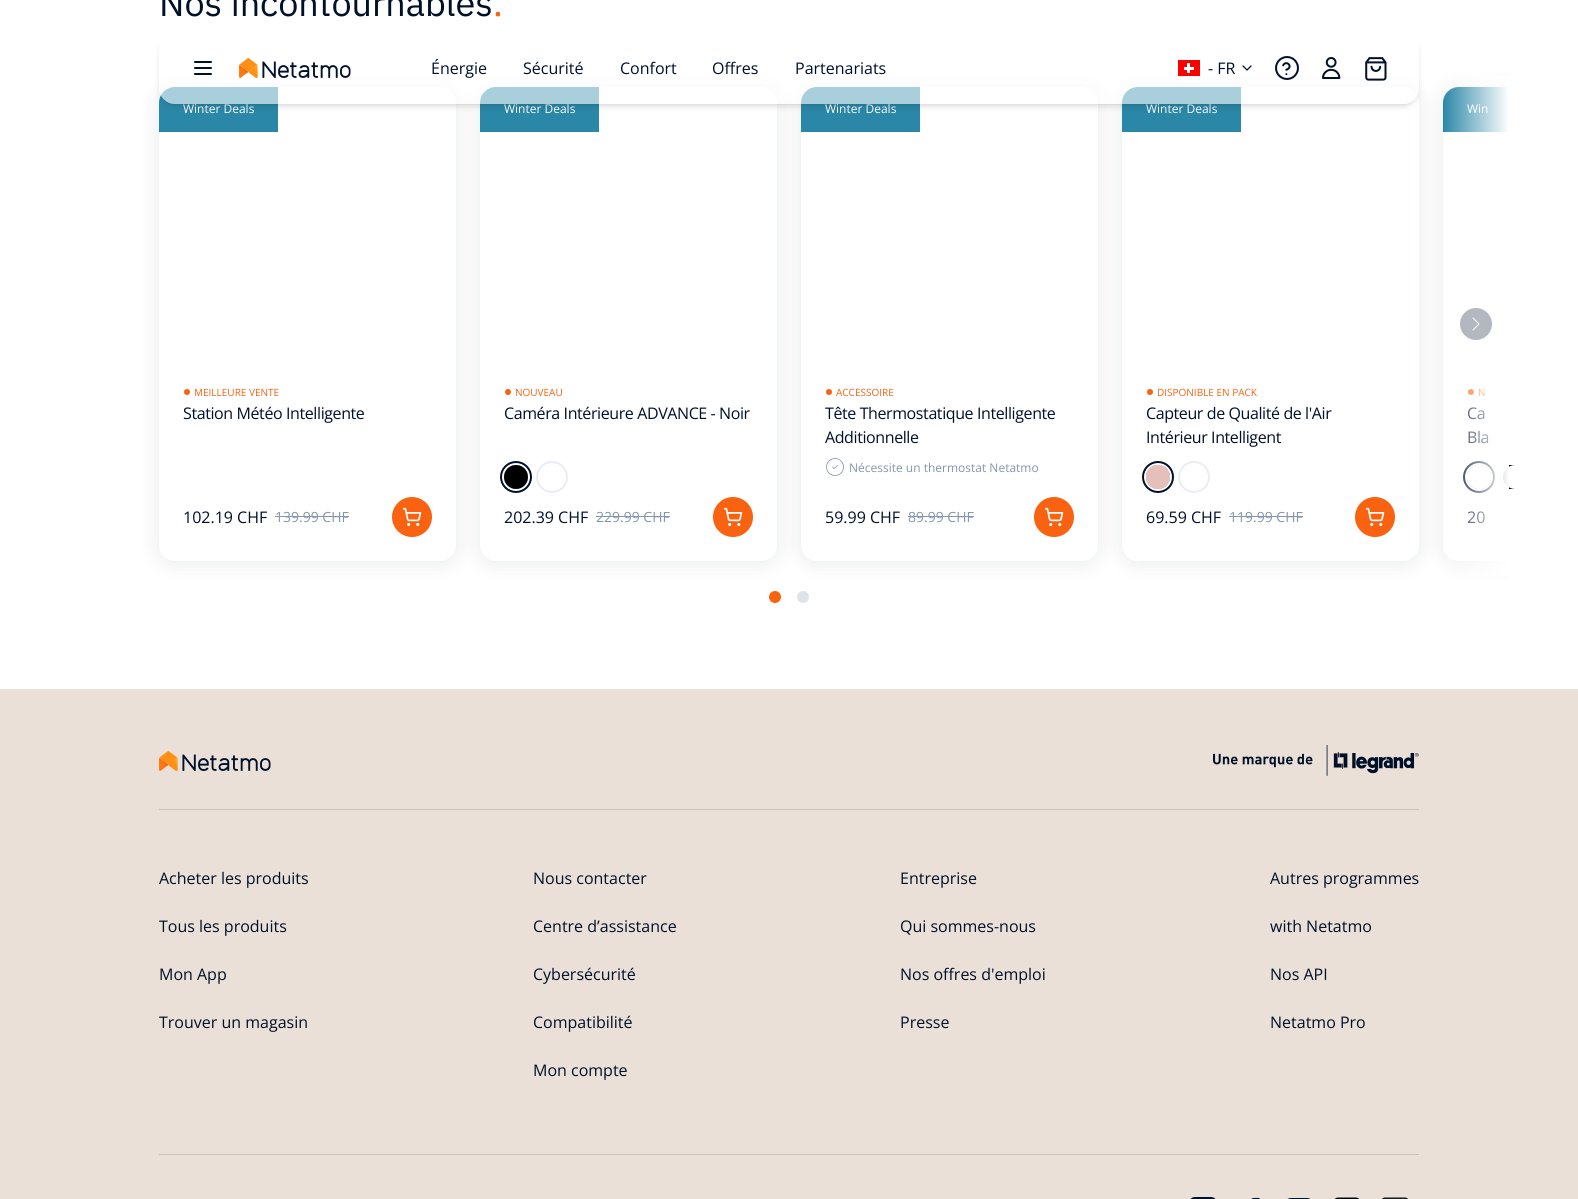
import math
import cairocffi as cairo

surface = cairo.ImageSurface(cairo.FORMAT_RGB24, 1578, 1199)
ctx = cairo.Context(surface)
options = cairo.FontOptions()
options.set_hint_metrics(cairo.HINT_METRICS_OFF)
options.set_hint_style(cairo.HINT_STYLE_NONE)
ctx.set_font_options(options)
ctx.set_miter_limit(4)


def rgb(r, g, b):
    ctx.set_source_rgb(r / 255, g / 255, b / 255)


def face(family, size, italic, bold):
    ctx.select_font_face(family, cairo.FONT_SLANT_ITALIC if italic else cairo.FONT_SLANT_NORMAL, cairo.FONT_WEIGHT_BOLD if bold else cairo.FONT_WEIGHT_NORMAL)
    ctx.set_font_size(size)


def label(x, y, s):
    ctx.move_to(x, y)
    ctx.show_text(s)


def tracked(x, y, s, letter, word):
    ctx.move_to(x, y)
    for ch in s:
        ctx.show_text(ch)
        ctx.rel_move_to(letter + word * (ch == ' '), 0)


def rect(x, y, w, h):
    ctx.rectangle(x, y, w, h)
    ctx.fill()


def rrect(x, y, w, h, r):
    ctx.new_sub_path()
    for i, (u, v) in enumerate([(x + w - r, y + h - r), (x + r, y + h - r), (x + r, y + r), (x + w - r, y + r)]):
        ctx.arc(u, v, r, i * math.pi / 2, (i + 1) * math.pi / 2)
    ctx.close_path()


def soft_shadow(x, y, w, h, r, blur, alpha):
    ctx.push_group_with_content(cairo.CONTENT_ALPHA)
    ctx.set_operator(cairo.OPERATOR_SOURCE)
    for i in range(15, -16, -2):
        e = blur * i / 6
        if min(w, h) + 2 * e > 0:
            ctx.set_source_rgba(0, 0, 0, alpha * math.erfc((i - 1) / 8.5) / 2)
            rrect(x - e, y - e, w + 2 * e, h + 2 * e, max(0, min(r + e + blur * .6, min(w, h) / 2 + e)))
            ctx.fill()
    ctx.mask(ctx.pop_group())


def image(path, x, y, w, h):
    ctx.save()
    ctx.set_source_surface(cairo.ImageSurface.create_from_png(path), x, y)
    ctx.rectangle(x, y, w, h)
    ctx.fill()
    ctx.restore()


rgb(255, 255, 255)
ctx.paint()
face('IBM Plex Sans', 36, 0, 0)
rgb(0, 16, 41)
label(159, 16, 'Nos incontournables')
rgb(249, 98, 16)
label(493, 16, '.')
rgb(0, 16, 41)
soft_shadow(159, 89, 297, 474, 16, 10, 0.1)
rgb(255, 255, 255)
rrect(159, 87, 297, 474, 16)
ctx.fill()
rgb(0, 16, 41)
soft_shadow(480, 89, 297, 474, 16, 10, 0.1)
rgb(255, 255, 255)
rrect(480, 87, 297, 474, 16)
ctx.fill()
rgb(0, 16, 41)
soft_shadow(801, 89, 297, 474, 16, 10, 0.1)
rgb(255, 255, 255)
rrect(801, 87, 297, 474, 16)
ctx.fill()
rgb(0, 16, 41)
soft_shadow(1122, 89, 297, 474, 16, 10, 0.1)
rgb(255, 255, 255)
rrect(1122, 87, 297, 474, 16)
ctx.fill()
ctx.save()
ctx.rectangle(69, 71, 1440, 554)
ctx.clip()
rgb(0, 16, 41)
soft_shadow(1443, 89, 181, 474, 16, 10, 0.1)
ctx.restore()
ctx.new_path()
ctx.move_to(1459, 87)
ctx.line_to(1509, 87)
ctx.line_to(1509, 561)
ctx.line_to(1459, 561)
ctx.curve_to(1450, 561, 1443, 554, 1443, 545)
ctx.line_to(1443, 103)
ctx.curve_to(1443, 94, 1450, 87, 1459, 87)
ctx.close_path()
ctx.fill()
rgb(43, 135, 167)
ctx.new_path()
ctx.move_to(1459, 87)
ctx.line_to(1509, 87)
ctx.line_to(1509, 132)
ctx.line_to(1443, 132)
ctx.line_to(1443, 103)
ctx.curve_to(1443, 94, 1450, 87, 1459, 87)
ctx.close_path()
ctx.fill()
face('Open Sans', 12, 0, 0)
rgb(255, 255, 255)
label(1467, 113, 'Win')
rgb(249, 98, 16)
ctx.new_path()
ctx.arc(1471, 392, 3, 0, 2 * math.pi)
ctx.fill()
face('Open Sans', 10, 0, 0)
label(1478, 396, 'N')
face('Open Sans', 16, 0, 0)
rgb(0, 16, 41)
tracked(1467, 419, 'Ca', -0.4, 0)
tracked(1467, 443, 'Bla', -0.4, 0)
ctx.new_path()
ctx.arc(1479, 477, 14, 0, 2 * math.pi)
ctx.set_line_width(4)
ctx.stroke()
ctx.arc(1479, 477, 13, 0, 2 * math.pi)
rgb(255, 255, 255)
ctx.set_line_width(2)
ctx.stroke()
ctx.arc(1479, 477, 12, 0, 2 * math.pi)
ctx.fill()
ctx.save()
ctx.rectangle(69, 71, 1440, 554)
ctx.clip()
ctx.arc(1515, 477, 14, 0, 2 * math.pi)
rgb(234, 237, 241)
ctx.set_line_width(4)
ctx.stroke()
ctx.arc(1515, 477, 13, 0, 2 * math.pi)
rgb(255, 255, 255)
ctx.set_line_width(2)
ctx.stroke()
ctx.restore()
rgb(0, 0, 0)
ctx.new_path()
ctx.move_to(1515, 465)
ctx.line_to(1509, 465)
ctx.line_to(1509, 489)
ctx.line_to(1515, 489)
ctx.curve_to(1508.5, 489, 1503, 483.5, 1503, 477)
ctx.curve_to(1503, 470.5, 1508.5, 465, 1515, 465)
ctx.close_path()
ctx.fill()
rgb(0, 16, 41)
label(1467, 523, '20')
gradient = cairo.LinearGradient(1443, 324, 1509, 324)
gradient.add_color_stop_rgba(0, 1, 1, 1, 0)
gradient.add_color_stop_rgba(1, 1, 1, 1, 1)
ctx.set_source(gradient)
rect(1444, 76, 65, 500)
rgb(179, 183, 191)
ctx.new_path()
ctx.arc(1476, 324, 16, 0, 2 * math.pi)
ctx.fill()
ctx.new_path()
ctx.move_to(1473, 330)
ctx.line_to(1479, 324)
ctx.line_to(1473, 318)
rgb(255, 255, 255)
ctx.set_line_width(1)
ctx.set_line_cap(cairo.LINE_CAP_ROUND)
ctx.set_line_join(cairo.LINE_JOIN_ROUND)
ctx.stroke()
rgb(43, 135, 167)
ctx.new_path()
ctx.move_to(175, 87)
ctx.line_to(278, 87)
ctx.line_to(278, 132)
ctx.line_to(159, 132)
ctx.line_to(159, 103)
ctx.curve_to(159, 94, 166, 87, 175, 87)
ctx.close_path()
ctx.fill()
face('Open Sans', 12, 0, 0)
rgb(255, 255, 255)
label(183, 113, 'Winter Deals')
rgb(249, 98, 16)
ctx.new_path()
ctx.arc(187, 392, 3, 0, 2 * math.pi)
ctx.fill()
face('Open Sans', 10, 0, 0)
label(194, 396, 'MEILLEURE VENTE')
face('Open Sans', 16, 0, 0)
rgb(0, 16, 41)
tracked(183, 419, 'Station Météo Intelligente', -0.4, 0)
label(183, 523, '102.19 CHF')
face('Open Sans', 14, 0, 0)
rgb(133, 150, 173)
label(275, 522, '139.99 CHF')
rect(275, 516, 74, 1)
rgb(249, 98, 16)
ctx.new_path()
ctx.arc(412, 517, 20, 0, 2 * math.pi)
ctx.fill()
image('image0.png', 402, 507, 20, 20)
rgb(43, 135, 167)
ctx.new_path()
ctx.move_to(496, 87)
ctx.line_to(599, 87)
ctx.line_to(599, 132)
ctx.line_to(480, 132)
ctx.line_to(480, 103)
ctx.curve_to(480, 94, 487, 87, 496, 87)
ctx.close_path()
ctx.fill()
face('Open Sans', 12, 0, 0)
rgb(255, 255, 255)
label(504, 113, 'Winter Deals')
rgb(249, 98, 16)
ctx.new_path()
ctx.arc(508, 392, 3, 0, 2 * math.pi)
ctx.fill()
face('Open Sans', 10, 0, 0)
label(515, 396, 'NOUVEAU')
face('Open Sans', 16, 0, 0)
rgb(0, 16, 41)
tracked(504, 419, 'Caméra Intérieure ADVANCE - Noir', -0.4, 0)
ctx.new_path()
ctx.arc(516, 477, 14, 0, 2 * math.pi)
ctx.set_line_width(4)
ctx.set_line_cap(cairo.LINE_CAP_BUTT)
ctx.set_line_join(cairo.LINE_JOIN_MITER)
ctx.stroke()
ctx.arc(516, 477, 13, 0, 2 * math.pi)
rgb(255, 255, 255)
ctx.set_line_width(2)
ctx.stroke()
rgb(0, 0, 0)
ctx.arc(516, 477, 12, 0, 2 * math.pi)
ctx.fill()
ctx.arc(552, 477, 14, 0, 2 * math.pi)
rgb(234, 237, 241)
ctx.set_line_width(4)
ctx.stroke()
ctx.arc(552, 477, 13, 0, 2 * math.pi)
rgb(255, 255, 255)
ctx.set_line_width(2)
ctx.stroke()
ctx.arc(552, 477, 12, 0, 2 * math.pi)
ctx.fill()
rgb(0, 16, 41)
label(504, 523, '202.39 CHF')
face('Open Sans', 14, 0, 0)
rgb(133, 150, 173)
label(596, 522, '229.99 CHF')
rect(596, 516, 74, 1)
rgb(249, 98, 16)
ctx.new_path()
ctx.arc(733, 517, 20, 0, 2 * math.pi)
ctx.fill()
image('image0.png', 723, 507, 20, 20)
rgb(43, 135, 167)
ctx.new_path()
ctx.move_to(817, 87)
ctx.line_to(920, 87)
ctx.line_to(920, 132)
ctx.line_to(801, 132)
ctx.line_to(801, 103)
ctx.curve_to(801, 94, 808, 87, 817, 87)
ctx.close_path()
ctx.fill()
face('Open Sans', 12, 0, 0)
rgb(255, 255, 255)
label(825, 113, 'Winter Deals')
rgb(249, 98, 16)
ctx.new_path()
ctx.arc(829, 392, 3, 0, 2 * math.pi)
ctx.fill()
face('Open Sans', 10, 0, 0)
label(836, 396, 'ACCESSOIRE')
face('Open Sans', 16, 0, 0)
rgb(0, 16, 41)
tracked(825, 419, 'Tête Thermostatique Intelligente', -0.4, 0)
tracked(825, 443, 'Additionnelle', -0.4, 0)
ctx.new_path()
ctx.arc(835, 467, 8.5, 0, 2 * math.pi)
rgb(133, 150, 173)
ctx.set_line_width(0.8)
ctx.stroke()
ctx.new_path()
ctx.move_to(832.5, 467)
ctx.line_to(834, 468.5)
ctx.line_to(837.5, 465.5)
ctx.set_line_cap(cairo.LINE_CAP_ROUND)
ctx.set_line_join(cairo.LINE_JOIN_ROUND)
ctx.stroke()
face('Open Sans', 12, 0, 0)
label(849, 472, 'Nécessite un thermostat Netatmo')
face('Open Sans', 16, 0, 0)
rgb(0, 16, 41)
label(825, 523, '59.99 CHF')
face('Open Sans', 14, 0, 0)
rgb(133, 150, 173)
label(908, 522, '89.99 CHF')
rect(908, 516, 66, 1)
rgb(249, 98, 16)
ctx.new_path()
ctx.arc(1054, 517, 20, 0, 2 * math.pi)
ctx.fill()
image('image0.png', 1044, 507, 20, 20)
rgb(43, 135, 167)
ctx.new_path()
ctx.move_to(1138, 87)
ctx.line_to(1241, 87)
ctx.line_to(1241, 132)
ctx.line_to(1122, 132)
ctx.line_to(1122, 103)
ctx.curve_to(1122, 94, 1129, 87, 1138, 87)
ctx.close_path()
ctx.fill()
face('Open Sans', 12, 0, 0)
rgb(255, 255, 255)
label(1146, 113, 'Winter Deals')
rgb(249, 98, 16)
ctx.new_path()
ctx.arc(1150, 392, 3, 0, 2 * math.pi)
ctx.fill()
face('Open Sans', 10, 0, 0)
label(1157, 396, 'DISPONIBLE EN PACK')
face('Open Sans', 16, 0, 0)
rgb(0, 16, 41)
tracked(1146, 419, 'Capteur de Qualité de l\'Air', -0.4, 0)
tracked(1146, 443, 'Intérieur Intelligent', -0.4, 0)
ctx.new_path()
ctx.arc(1158, 477, 14, 0, 2 * math.pi)
ctx.set_line_width(4)
ctx.set_line_cap(cairo.LINE_CAP_BUTT)
ctx.set_line_join(cairo.LINE_JOIN_MITER)
ctx.stroke()
ctx.arc(1158, 477, 13, 0, 2 * math.pi)
rgb(255, 255, 255)
ctx.set_line_width(2)
ctx.stroke()
rgb(229, 192, 186)
ctx.arc(1158, 477, 12, 0, 2 * math.pi)
ctx.fill()
ctx.arc(1194, 477, 14, 0, 2 * math.pi)
rgb(234, 237, 241)
ctx.set_line_width(4)
ctx.stroke()
ctx.arc(1194, 477, 13, 0, 2 * math.pi)
rgb(255, 255, 255)
ctx.set_line_width(2)
ctx.stroke()
ctx.arc(1194, 477, 12, 0, 2 * math.pi)
ctx.fill()
rgb(0, 16, 41)
label(1146, 523, '69.59 CHF')
face('Open Sans', 14, 0, 0)
rgb(133, 150, 173)
label(1229, 522, '119.99 CHF')
rect(1229, 516, 74, 1)
rgb(249, 98, 16)
ctx.new_path()
ctx.arc(1375, 517, 20, 0, 2 * math.pi)
ctx.fill()
image('image0.png', 1365, 507, 20, 20)
ctx.arc(775, 597, 6, 0, 2 * math.pi)
ctx.fill()
rgb(223, 227, 234)
ctx.arc(803, 597, 6, 0, 2 * math.pi)
ctx.fill()
ctx.save()
ctx.set_fill_rule(cairo.FILL_RULE_EVEN_ODD)
ctx.new_path()
ctx.move_to(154, 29)
ctx.line_to(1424, 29)
ctx.line_to(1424, 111)
ctx.line_to(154, 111)
ctx.close_path()
ctx.move_to(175, 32)
ctx.line_to(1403, 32)
ctx.curve_to(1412, 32, 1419, 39, 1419, 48)
ctx.line_to(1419, 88)
ctx.curve_to(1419, 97, 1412, 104, 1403, 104)
ctx.line_to(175, 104)
ctx.curve_to(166, 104, 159, 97, 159, 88)
ctx.line_to(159, 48)
ctx.curve_to(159, 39, 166, 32, 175, 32)
ctx.close_path()
ctx.clip()
rgb(0, 0, 0)
soft_shadow(161, 36, 1256, 68, 14, 2, 0.1)
ctx.restore()
ctx.save()
ctx.set_fill_rule(cairo.FILL_RULE_EVEN_ODD)
ctx.new_path()
ctx.move_to(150, 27)
ctx.line_to(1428, 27)
ctx.line_to(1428, 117)
ctx.line_to(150, 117)
ctx.close_path()
ctx.move_to(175, 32)
ctx.line_to(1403, 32)
ctx.curve_to(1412, 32, 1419, 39, 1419, 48)
ctx.line_to(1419, 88)
ctx.curve_to(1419, 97, 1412, 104, 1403, 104)
ctx.line_to(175, 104)
ctx.curve_to(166, 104, 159, 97, 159, 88)
ctx.line_to(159, 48)
ctx.curve_to(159, 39, 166, 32, 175, 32)
ctx.close_path()
ctx.clip()
rgb(0, 0, 0)
soft_shadow(160, 37, 1258, 70, 15, 3, 0.1)
ctx.restore()
ctx.set_source_rgba(1, 1, 1, 0.6)
rrect(159, 32, 1260, 72, 16)
ctx.fill()
ctx.new_path()
ctx.move_to(211, 62)
ctx.line_to(195, 62)
ctx.move_to(211, 68)
ctx.line_to(195, 68)
ctx.move_to(211, 74)
ctx.line_to(195, 74)
rgb(0, 16, 41)
ctx.set_line_cap(cairo.LINE_CAP_ROUND)
ctx.set_line_join(cairo.LINE_JOIN_ROUND)
ctx.stroke()
image('image1.png', 239, 58, 112, 20)
face('Open Sans', 16, 0, 0)
label(431, 74, 'Énergie')
label(523, 74, 'Sécurité')
label(620, 74, 'Confort')
label(712, 74, 'Offres')
label(795, 74, 'Partenariats')
rgb(255, 0, 0)
rect(1178, 60, 22, 16)
rgb(255, 255, 255)
rect(1184, 67, 10, 3)
rect(1187, 63, 3, 10)
rgb(0, 16, 41)
label(1208, 74, '- FR')
ctx.new_path()
ctx.move_to(1243, 66)
ctx.line_to(1247, 70)
ctx.line_to(1251, 66)
ctx.set_line_width(1.3)
ctx.stroke()
image('image2.png', 1275, 56, 24, 24)
image('image3.png', 1322, 57, 19, 22)
image('image4.png', 1365, 57, 22, 24)
rgb(234, 224, 215)
rect(0, 689, 1578, 510)
rgb(199, 193, 189)
rect(159, 809, 1260, 1)
image('image5.png', 159, 751, 112, 20)
image('image6.png', 1213, 745, 206, 31)
rgb(0, 16, 41)
label(159, 884, 'Acheter les produits')
label(159, 932, 'Tous les produits')
label(159, 980, 'Mon App')
label(159, 1028, 'Trouver un magasin')
label(533, 884, 'Nous contacter')
label(533, 932, 'Centre d’assistance')
label(533, 980, 'Cybersécurité')
label(533, 1028, 'Compatibilité')
label(533, 1076, 'Mon compte')
label(900, 884, 'Entreprise')
label(900, 932, 'Qui sommes-nous')
label(900, 980, 'Nos offres d\'emploi')
label(900, 1028, 'Presse')
label(1270, 884, 'Autres programmes')
label(1270, 932, 'with Netatmo')
label(1270, 980, 'Nos API')
label(1270, 1028, 'Netatmo Pro')
rgb(199, 193, 189)
rect(159, 1154, 1260, 1)
rrect(1190, 1198, 26, 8, 5)
rgb(0, 17, 42)
ctx.set_line_width(2)
ctx.set_line_cap(cairo.LINE_CAP_BUTT)
ctx.set_line_join(cairo.LINE_JOIN_MITER)
ctx.stroke()
image('image7.png', 1251, 1197, 9, 2)
image('image8.png', 1287, 1198, 24, 1)
image('image9.png', 1334, 1197, 26, 2)
image('image10.png', 1382, 1197, 26, 2)
surface.write_to_png('render.png')
